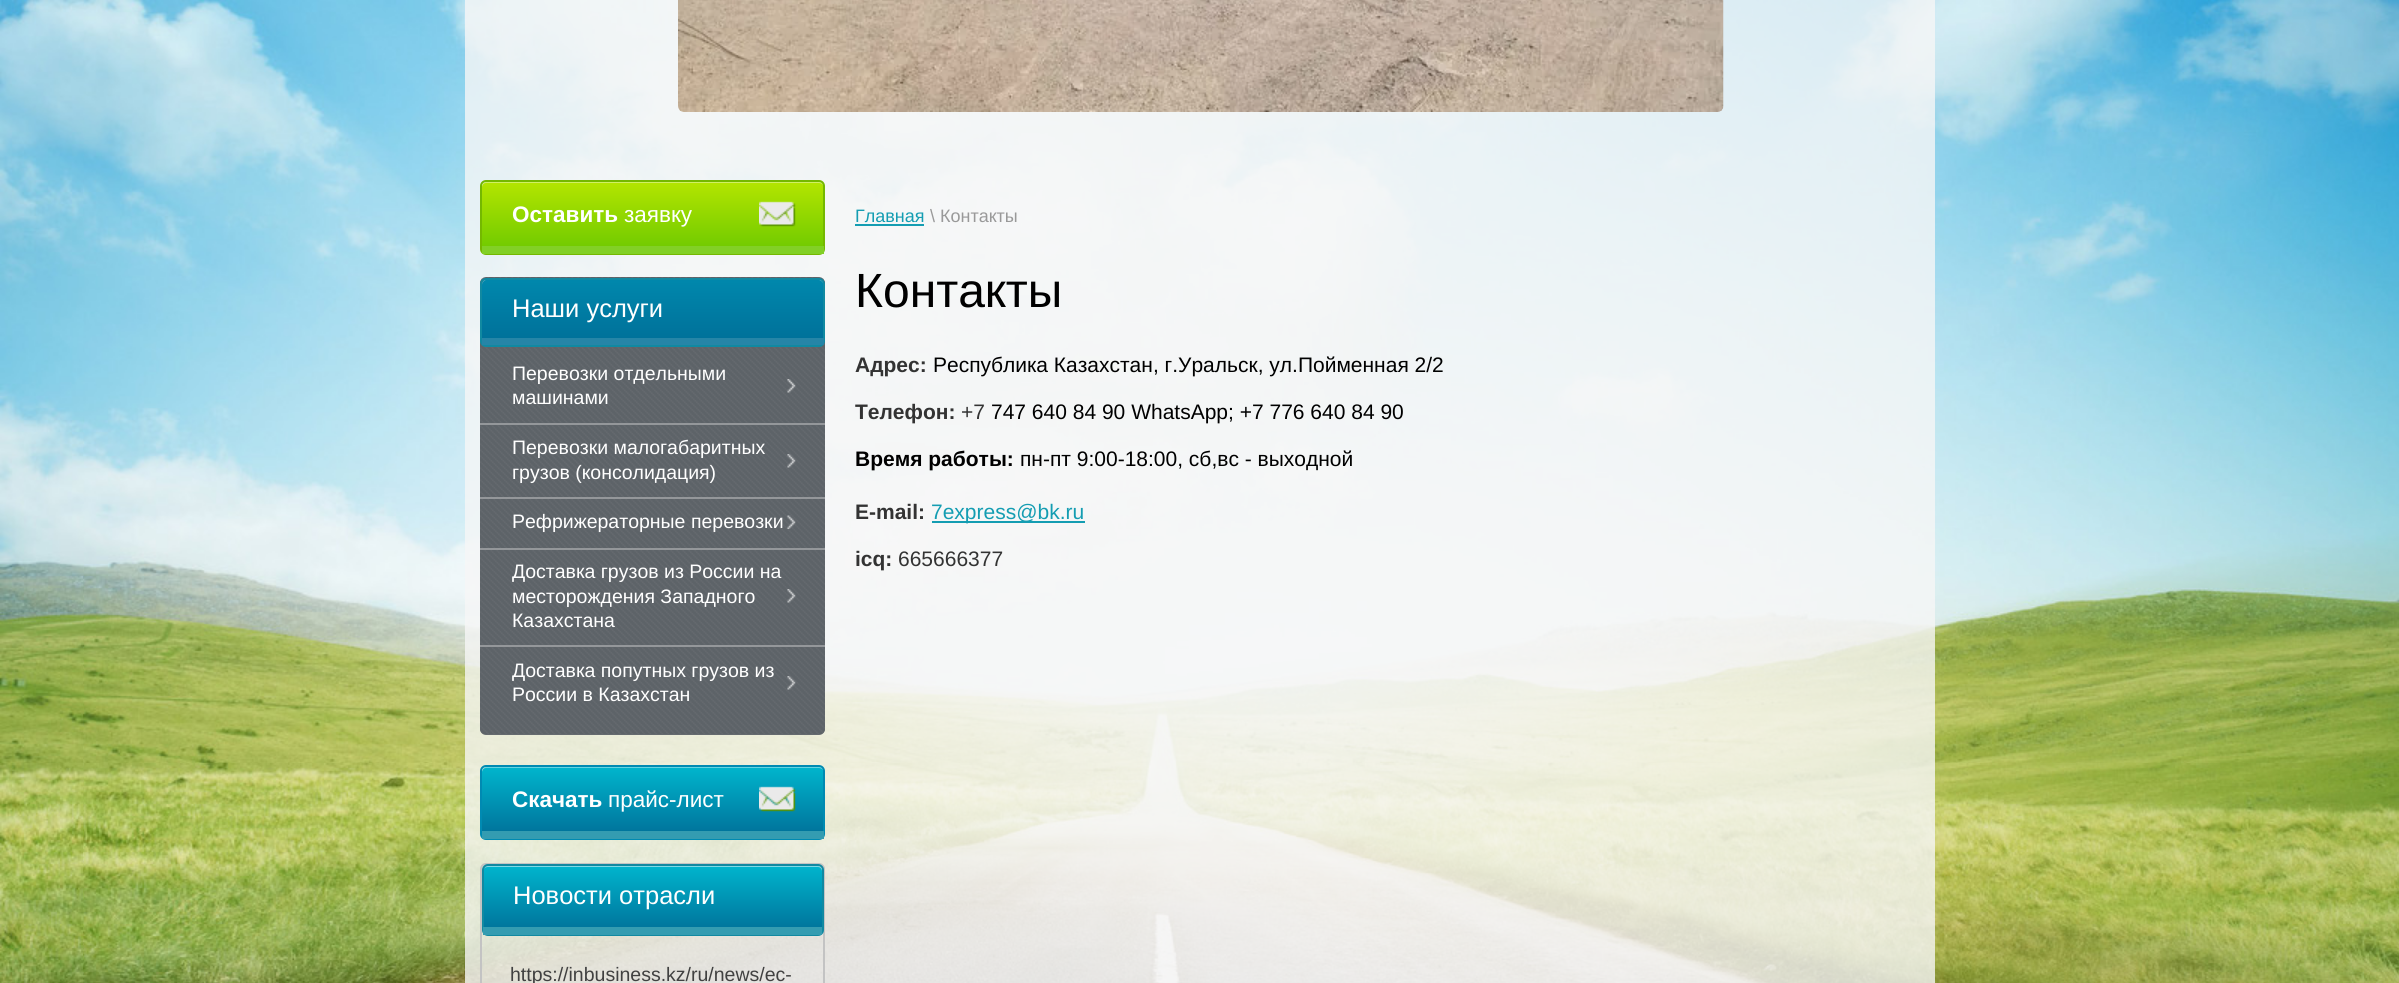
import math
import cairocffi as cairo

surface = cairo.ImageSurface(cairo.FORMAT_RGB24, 2399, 983)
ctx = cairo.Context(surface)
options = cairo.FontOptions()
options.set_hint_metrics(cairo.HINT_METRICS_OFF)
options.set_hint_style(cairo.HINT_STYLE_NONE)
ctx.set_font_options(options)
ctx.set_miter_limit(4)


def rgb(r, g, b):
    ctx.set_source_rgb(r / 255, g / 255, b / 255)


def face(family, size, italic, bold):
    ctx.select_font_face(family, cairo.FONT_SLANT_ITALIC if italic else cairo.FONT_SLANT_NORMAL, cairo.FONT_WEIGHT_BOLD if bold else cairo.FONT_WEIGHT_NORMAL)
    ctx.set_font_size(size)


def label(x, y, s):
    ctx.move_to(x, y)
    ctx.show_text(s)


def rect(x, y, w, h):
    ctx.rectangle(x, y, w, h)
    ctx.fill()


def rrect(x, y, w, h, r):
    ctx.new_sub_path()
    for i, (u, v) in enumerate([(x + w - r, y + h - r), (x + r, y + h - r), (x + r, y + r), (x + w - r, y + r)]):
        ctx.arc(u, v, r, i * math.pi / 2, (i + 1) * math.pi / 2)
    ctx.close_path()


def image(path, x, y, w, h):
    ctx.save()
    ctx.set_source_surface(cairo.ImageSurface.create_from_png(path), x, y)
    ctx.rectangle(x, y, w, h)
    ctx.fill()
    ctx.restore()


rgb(255, 255, 255)
ctx.paint()
image('image0.png', 0, 0, 2399, 983)
ctx.set_source_rgba(0.965, 0.965, 0.965, 0.8)
rect(465, 0, 1470, 157)
image('image1.png', 678, 0, 1046, 112)
rect(465, 157, 1470, 826)
gradient = cairo.LinearGradient(653, 254, 653, 182)
gradient.add_color_stop_rgba(0, 0.42, 0.784, 0, 1)
gradient.add_color_stop_rgba(1, 0.702, 0.898, 0, 1)
ctx.set_source(gradient)
rrect(482, 182, 342, 72, 5)
ctx.fill()
ctx.set_source_rgba(1, 1, 1, 0.4)
ctx.new_path()
ctx.move_to(486, 183)
ctx.line_to(819, 183)
ctx.curve_to(821, 183, 824, 185, 824, 188)
ctx.curve_to(824, 185, 822, 182, 819, 182)
ctx.line_to(487, 182)
ctx.curve_to(484, 182, 482, 185, 482, 188)
ctx.curve_to(482, 185, 484, 183, 486, 183)
ctx.close_path()
ctx.fill()
rrect(481, 181, 343, 73, 5)
rgb(116, 184, 0)
ctx.stroke()
image('image2.png', 759, 201, 37, 26)
rgb(130, 208, 38)
rect(482, 246, 342, 8)
face('Liberation Sans', 22.5, 0, 1)
rgb(255, 255, 255)
label(512, 222, 'Оставить')
face('Liberation Sans', 22.5, 0, 0)
label(624, 222, 'заявку')
rgb(101, 106, 111)
rrect(480, 278, 345, 457, 6)
ctx.fill()
image('image3.png', 480, 277, 345, 457)
gradient = cairo.LinearGradient(653, 345, 653, 279)
gradient.add_color_stop_rgba(0, 0, 0.435, 0.596, 1)
gradient.add_color_stop_rgba(1, 0, 0.533, 0.678, 1)
ctx.set_source(gradient)
rrect(482, 279, 342, 66, 5)
ctx.fill()
ctx.set_source_rgba(1, 1, 1, 0.5)
ctx.new_path()
ctx.move_to(486, 280)
ctx.line_to(819, 280)
ctx.curve_to(821, 280, 824, 283, 824, 285)
ctx.curve_to(824, 282, 822, 279, 819, 279)
ctx.line_to(487, 279)
ctx.curve_to(484, 279, 482, 282, 482, 285)
ctx.curve_to(482, 283, 484, 280, 486, 280)
ctx.close_path()
ctx.fill()
rrect(481, 279, 343, 67, 5)
rgb(17, 137, 161)
ctx.stroke()
rgb(38, 133, 167)
rect(482, 338, 342, 7)
face('Liberation Sans', 25.5, 0, 0)
rgb(255, 255, 255)
label(512, 317, 'Наши услуги')
image('image4.png', 787, 379, 9, 14)
face('Liberation Sans', 19.5, 0, 0)
label(512, 380, 'Перевозки отдельными')
label(512, 404, 'машинами')
rgb(148, 151, 154)
rect(480, 423, 345, 2)
image('image5.png', 787, 454, 9, 14)
rgb(255, 255, 255)
label(512, 454, 'Перевозки малогабаритных')
label(512, 479, 'грузов (консолидация)')
rgb(148, 151, 154)
rect(480, 497, 345, 2)
image('image6.png', 787, 515, 9, 14)
rgb(255, 255, 255)
label(512, 528, 'Рефрижераторные перевозки')
rgb(148, 151, 154)
rect(480, 548, 345, 2)
image('image4.png', 787, 589, 9, 14)
rgb(255, 255, 255)
label(512, 578, 'Доставка грузов из России на')
label(512, 603, 'месторождения Западного')
label(512, 627, 'Казахстана')
rgb(148, 151, 154)
rect(480, 645, 345, 2)
image('image5.png', 787, 676, 9, 14)
rgb(255, 255, 255)
label(512, 677, 'Доставка попутных грузов из')
label(512, 701, 'России в Казахстан')
gradient = cairo.LinearGradient(653, 839, 653, 767)
gradient.add_color_stop_rgba(0, 0, 0.431, 0.592, 1)
gradient.add_color_stop_rgba(1, 0, 0.71, 0.804, 1)
ctx.set_source(gradient)
rrect(482, 767, 342, 72, 5)
ctx.fill()
ctx.set_source_rgba(1, 1, 1, 0.4)
ctx.new_path()
ctx.move_to(486, 768)
ctx.line_to(819, 768)
ctx.curve_to(821, 768, 824, 770, 824, 772)
ctx.curve_to(824, 769, 822, 767, 819, 767)
ctx.line_to(487, 767)
ctx.curve_to(484, 767, 482, 769, 482, 772)
ctx.curve_to(482, 770, 484, 768, 486, 768)
ctx.close_path()
ctx.fill()
rrect(481, 766, 343, 73, 5)
rgb(0, 138, 178)
ctx.stroke()
image('image7.png', 759, 786, 37, 26)
rgb(52, 156, 177)
rect(482, 831, 342, 8)
face('Liberation Sans', 22.5, 0, 1)
rgb(255, 255, 255)
label(512, 807, 'Скачать')
face('Liberation Sans', 22.5, 0, 0)
label(608, 807, 'прайс-лист')
rrect(481, 864, 343, 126, 5)
rgb(195, 195, 195)
ctx.stroke()
gradient = cairo.LinearGradient(653, 935, 653, 866)
gradient.add_color_stop_rgba(0, 0, 0.431, 0.592, 1)
gradient.add_color_stop_rgba(1, 0, 0.71, 0.804, 1)
ctx.set_source(gradient)
rrect(483, 866, 339, 69, 5)
ctx.fill()
ctx.set_source_rgba(1, 1, 1, 0.5)
ctx.new_path()
ctx.move_to(488, 867)
ctx.line_to(818, 867)
ctx.curve_to(820, 867, 822, 869, 822, 872)
ctx.curve_to(822, 869, 820, 866, 817, 866)
ctx.line_to(488, 866)
ctx.curve_to(485, 866, 483, 869, 483, 872)
ctx.curve_to(483, 869, 485, 867, 488, 867)
ctx.close_path()
ctx.fill()
rrect(483, 865, 340, 70, 5)
rgb(17, 137, 161)
ctx.stroke()
rgb(52, 156, 177)
rect(483, 927, 339, 8)
face('Liberation Sans', 25.5, 0, 0)
rgb(255, 255, 255)
label(513, 904, 'Новости отрасли')
face('Liberation Sans', 19.5, 0, 0)
rgb(65, 65, 65)
label(510, 981, 'https://inbusiness.kz/ru/news/ec-')
face('Liberation Sans', 18, 0, 0)
rgb(20, 157, 178)
label(855, 222, 'Главная')
rect(855, 224, 69, 2)
rgb(153, 153, 153)
label(930, 222, '\\ Контакты')
face('Liberation Sans', 48, 0, 0)
rgb(0, 0, 0)
label(855, 307, 'Контакты')
face('Liberation Sans', 21, 0, 1)
rgb(51, 51, 51)
label(855, 372, 'Адрес:')
face('Liberation Sans', 21, 0, 0)
rgb(0, 0, 0)
label(933, 372, 'Республика Казахстан, г.Уральск, ул.Пойменная 2/2')
face('Liberation Sans', 21, 0, 1)
rgb(51, 51, 51)
label(855, 419, 'Телефон:')
face('Liberation Sans', 21, 0, 0)
label(961, 419, '+7')
rgb(0, 0, 0)
label(991, 419, '747 640 84 90 WhatsApp; +7 776 640 84 90')
face('Liberation Sans', 21, 0, 1)
label(855, 466, 'Время работы:')
face('Liberation Sans', 21, 0, 0)
label(1020, 466, 'пн-пт 9:00-18:00, сб,вс - выходной')
face('Liberation Sans', 21, 0, 1)
rgb(51, 51, 51)
label(855, 519, 'E-mail:')
rgb(20, 157, 178)
rect(932, 521, 153, 2)
face('Liberation Sans', 21, 0, 0)
label(931, 519, '7express@bk.ru')
face('Liberation Sans', 21, 0, 1)
rgb(51, 51, 51)
label(855, 566, 'icq:')
face('Liberation Sans', 21, 0, 0)
label(898, 566, '665666377')
surface.write_to_png('render.png')
